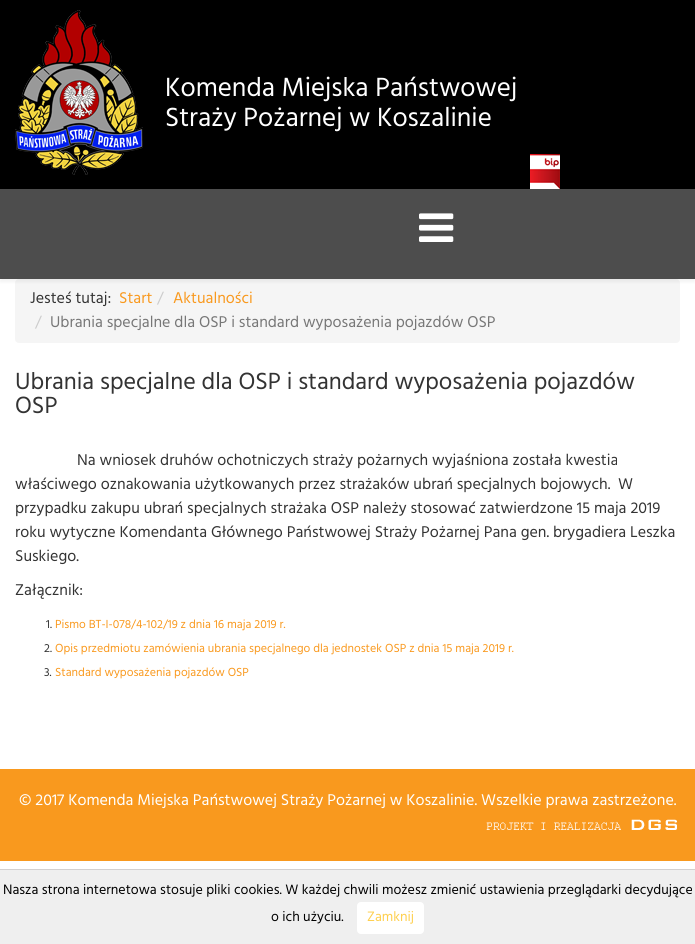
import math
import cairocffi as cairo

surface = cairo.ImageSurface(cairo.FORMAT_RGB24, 695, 944)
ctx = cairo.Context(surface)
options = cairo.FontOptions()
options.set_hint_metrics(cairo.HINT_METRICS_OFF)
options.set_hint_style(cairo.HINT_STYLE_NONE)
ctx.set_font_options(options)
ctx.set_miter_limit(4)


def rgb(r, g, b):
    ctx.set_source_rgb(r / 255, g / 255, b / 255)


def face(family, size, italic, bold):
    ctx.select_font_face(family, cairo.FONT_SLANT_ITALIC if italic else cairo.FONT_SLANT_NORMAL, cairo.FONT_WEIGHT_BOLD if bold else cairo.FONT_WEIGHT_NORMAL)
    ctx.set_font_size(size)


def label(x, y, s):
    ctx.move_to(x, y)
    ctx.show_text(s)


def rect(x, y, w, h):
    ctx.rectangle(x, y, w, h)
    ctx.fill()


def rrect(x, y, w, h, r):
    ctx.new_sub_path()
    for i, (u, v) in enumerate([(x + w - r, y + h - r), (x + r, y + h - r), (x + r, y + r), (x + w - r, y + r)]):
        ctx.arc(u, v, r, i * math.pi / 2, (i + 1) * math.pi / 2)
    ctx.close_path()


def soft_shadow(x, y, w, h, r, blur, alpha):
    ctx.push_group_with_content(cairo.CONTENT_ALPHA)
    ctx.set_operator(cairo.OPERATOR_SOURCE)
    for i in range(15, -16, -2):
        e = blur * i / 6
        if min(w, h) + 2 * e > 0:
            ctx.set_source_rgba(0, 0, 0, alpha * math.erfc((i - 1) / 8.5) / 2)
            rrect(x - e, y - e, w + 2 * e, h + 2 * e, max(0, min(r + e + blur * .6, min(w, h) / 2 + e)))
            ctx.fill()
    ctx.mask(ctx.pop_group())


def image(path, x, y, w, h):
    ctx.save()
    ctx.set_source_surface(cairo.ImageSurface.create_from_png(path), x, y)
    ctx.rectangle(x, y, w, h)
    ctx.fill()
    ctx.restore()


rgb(255, 255, 255)
ctx.paint()
rgb(0, 0, 0)
rect(0, 0, 695, 189)
image('image0.png', 15, 10, 128, 165)
face('Hind', 27, 0, 0)
rgb(255, 255, 255)
label(165, 96, 'Komenda Miejska Państwowej')
label(165, 126, 'Straży Pożarnej w Koszalinie')
image('image1.png', 530, 154, 30, 35)
rgb(245, 245, 245)
rrect(15, 279, 665, 64, 4)
ctx.fill()
rgb(0, 0, 0)
soft_shadow(0, 192, 695, 90, 0, 1.5, 0.05)
rgb(77, 77, 77)
rect(0, 189, 695, 90)
image('image2.png', 419, 213, 35, 29)
face('Hind', 16, 0, 0)
rgb(51, 51, 51)
label(30, 303, 'Jesteś tutaj:')
rgb(249, 153, 30)
label(119, 303, 'Start')
rgb(204, 204, 204)
label(157, 303, '/')
rgb(249, 153, 30)
label(173, 303, 'Aktualności')
rgb(204, 204, 204)
label(35, 327, '/')
rgb(119, 119, 119)
label(50, 327, 'Ubrania specjalne dla OSP i standard wyposażenia pojazdów OSP')
face('Hind', 24, 0, 0)
rgb(51, 51, 51)
label(15, 389, 'Ubrania specjalne dla OSP i standard wyposażenia pojazdów')
label(15, 413, 'OSP')
face('Hind', 16, 0, 0)
label(77, 465, 'Na wniosek druhów ochotniczych straży pożarnych wyjaśniona została kwestia')
label(15, 489, 'właściwego oznakowania użytkowanych przez strażaków ubrań specjalnych bojowych.  W')
label(15, 513, 'przypadku zakupu ubrań specjalnych strażaka OSP należy stosować zatwierdzone 15 maja 2019')
label(15, 537, 'roku wytyczne Komendanta Głównego Państwowej Straży Pożarnej Pana gen. brygadiera Leszka')
label(15, 561, 'Suskiego.')
label(15, 595, 'Załącznik:')
face('Hind', 12, 0, 0)
label(46, 628, '1.')
rgb(249, 153, 30)
label(55, 628, 'Pismo BT-I-078/4-102/19 z dnia 16 maja 2019 r.')
rgb(51, 51, 51)
label(44, 652, '2.')
rgb(249, 153, 30)
label(55, 652, 'Opis przedmiotu zamówienia ubrania specjalnego dla jednostek OSP z dnia 15 maja 2019 r.')
rgb(51, 51, 51)
label(44, 676, '3.')
rgb(249, 153, 30)
label(55, 676, 'Standard wyposażenia pojazdów OSP')
rect(0, 769, 695, 92)
face('Hind', 16, 0, 0)
rgb(255, 255, 255)
label(19, 805, '© 2017 Komenda Miejska Państwowej Straży Pożarnej w Koszalinie. Wszelkie prawa zastrzeżone.')
image('image3.png', 486, 819, 191, 11)
rgb(239, 239, 239)
rect(0, 870, 695, 74)
rgb(211, 208, 208)
rect(0, 869, 695, 1)
face('Hind', 14, 0, 0)
rgb(0, 0, 0)
label(3, 894, 'Nasza strona internetowa stosuje pliki cookies. W każdej chwili możesz zmienić ustawienia przeglądarki decydujące')
label(271, 921, 'o ich użyciu.')
rgb(255, 255, 255)
rrect(357, 902, 67, 32, 4)
ctx.fill()
rgb(254, 207, 77)
label(367, 921, 'Zamknij')
surface.write_to_png('render.png')
